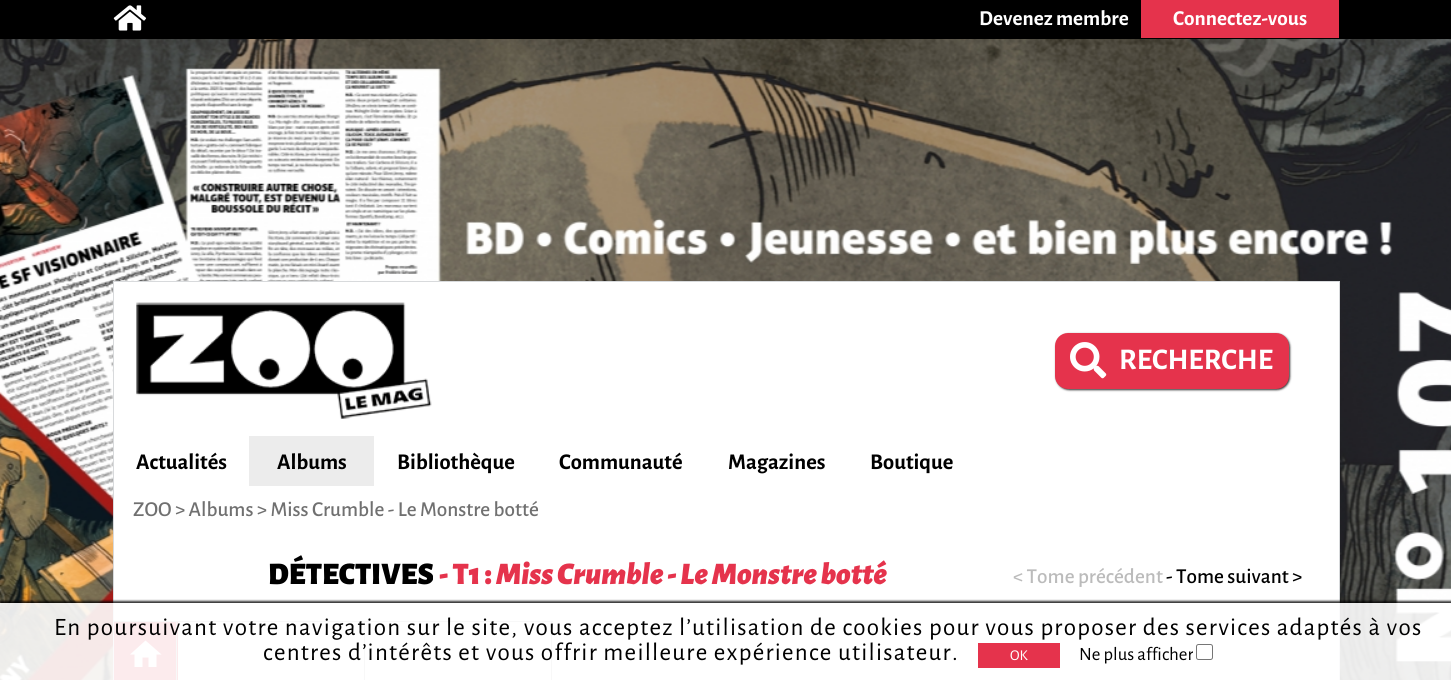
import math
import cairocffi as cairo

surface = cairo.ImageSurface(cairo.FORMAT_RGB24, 1451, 680)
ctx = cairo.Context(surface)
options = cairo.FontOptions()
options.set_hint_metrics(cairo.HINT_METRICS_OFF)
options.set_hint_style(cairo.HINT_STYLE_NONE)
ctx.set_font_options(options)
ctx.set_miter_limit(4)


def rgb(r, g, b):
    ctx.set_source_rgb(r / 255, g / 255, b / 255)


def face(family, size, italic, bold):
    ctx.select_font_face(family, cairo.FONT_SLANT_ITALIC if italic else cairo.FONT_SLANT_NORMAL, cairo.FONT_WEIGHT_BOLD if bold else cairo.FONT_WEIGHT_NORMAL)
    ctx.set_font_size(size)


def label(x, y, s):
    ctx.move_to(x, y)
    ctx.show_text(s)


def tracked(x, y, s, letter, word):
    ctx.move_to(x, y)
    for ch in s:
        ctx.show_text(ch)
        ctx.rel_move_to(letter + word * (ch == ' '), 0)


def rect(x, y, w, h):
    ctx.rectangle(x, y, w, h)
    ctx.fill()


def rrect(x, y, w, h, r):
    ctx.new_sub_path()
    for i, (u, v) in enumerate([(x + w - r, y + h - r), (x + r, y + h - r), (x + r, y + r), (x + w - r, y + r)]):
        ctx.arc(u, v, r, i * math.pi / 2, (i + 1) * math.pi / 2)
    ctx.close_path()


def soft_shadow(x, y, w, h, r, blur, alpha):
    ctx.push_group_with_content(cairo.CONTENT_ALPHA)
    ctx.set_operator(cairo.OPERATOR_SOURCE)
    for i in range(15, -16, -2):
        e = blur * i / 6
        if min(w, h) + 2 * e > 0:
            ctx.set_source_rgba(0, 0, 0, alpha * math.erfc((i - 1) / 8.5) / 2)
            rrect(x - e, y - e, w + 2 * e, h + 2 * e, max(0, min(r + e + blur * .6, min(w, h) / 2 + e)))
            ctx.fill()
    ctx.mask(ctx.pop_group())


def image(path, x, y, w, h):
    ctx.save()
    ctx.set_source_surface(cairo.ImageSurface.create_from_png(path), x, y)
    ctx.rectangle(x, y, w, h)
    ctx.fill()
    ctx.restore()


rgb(255, 255, 255)
ctx.paint()
image('image0.png', 0, 39, 1451, 641)
rgb(0, 0, 0)
rect(0, 0, 1451, 39)
image('image1.png', 113, 5, 33, 26)
face('Alegreya Sans', 21.25, 0, 1)
rgb(255, 255, 255)
label(979, 25, 'Devenez membre')
rgb(229, 51, 76)
rect(1141, 0, 198, 38)
rgb(255, 255, 255)
label(1173, 25, 'Connectez-vous')
ctx.rectangle(113.5, 281.5, 1226, 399)
ctx.fill_preserve()
rgb(216, 218, 220)
ctx.set_line_width(1)
ctx.stroke()
image('image2.png', 136, 302, 296, 117)
rgb(0, 0, 0)
soft_shadow(1056, 334, 234, 56, 13, 1, 0.8)
rgb(229, 51, 76)
rrect(1055, 333, 234, 56, 13)
ctx.fill()
image('image3.png', 1070, 342, 37, 37)
face('Alegreya Sans', 30, 0, 1)
rgb(255, 255, 255)
label(1119, 369, 'RECHERCHE')
face('Alegreya Sans', 22.5, 0, 1)
rgb(0, 0, 0)
label(136, 469, 'Actualités')
rgb(236, 236, 236)
rect(249, 436, 125, 50)
rgb(0, 0, 0)
label(277, 469, 'Albums')
label(397, 469, 'Bibliothèque')
label(559, 469, 'Communauté')
label(728, 469, 'Magazines')
label(870, 469, 'Boutique')
face('Alegreya Sans Medium', 21.25, 0, 0)
rgb(112, 112, 112)
label(133, 516, 'ZOO > Albums > Miss Crumble - Le Monstre botté')
face('Alegreya Sans Black', 31.25, 0, 0)
rgb(0, 0, 0)
label(268, 584, 'DÉTECTIVES')
rgb(229, 51, 76)
label(439, 584, '- T1 :')
face('Alegreya Sans Black', 31.25, 1, 0)
label(496, 584, 'Miss Crumble - Le Monstre botté')
face('Alegreya Sans Medium', 21.25, 0, 0)
rgb(187, 187, 187)
label(1013, 583, '< Tome précédent')
rgb(0, 0, 0)
label(1166, 583, '- Tome suivant >')
rgb(187, 187, 187)
rect(114, 621, 251, 1)
rect(364, 621, 1, 59)
rgb(229, 51, 76)
rect(114, 622, 64, 58)
rgb(255, 255, 255)
ctx.new_path()
ctx.move_to(142.5, 667)
ctx.line_to(142.5, 657.5)
ctx.line_to(148.5, 657.5)
ctx.line_to(148.5, 667)
ctx.line_to(156.5, 667)
ctx.line_to(156.5, 654.5)
ctx.line_to(161.5, 654.5)
ctx.line_to(145.5, 640.5)
ctx.line_to(130, 654.5)
ctx.line_to(134.5, 654.5)
ctx.line_to(134.5, 667)
ctx.close_path()
ctx.fill()
rgb(187, 187, 187)
rect(176, 621, 1, 59)
rect(364, 621, 189, 1)
rect(551, 621, 1, 59)
ctx.save()
ctx.rectangle(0, 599, 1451, 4)
ctx.clip()
rgb(0, 0, 0)
soft_shadow(0, 601, 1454, 78, 0, 1, 0.8)
ctx.restore()
ctx.set_source_rgba(1, 1, 1, 0.9)
rect(0, 603, 1451, 77)
face('Alegreya Sans', 25, 0, 0)
rgb(0, 0, 0)
tracked(54, 635, 'En poursuivant votre navigation sur le site, vous acceptez l’utilisation de cookies pour vous proposer des services adaptés à vos', 1.25, 0)
tracked(263, 660, 'centres d’intérêts et vous offrir meilleure expérience utilisateur.', 1.25, 0)
rgb(229, 51, 76)
rect(978, 643, 82, 25)
face('Alegreya Sans', 15, 0, 0)
rgb(255, 255, 255)
label(1010, 660, 'OK')
face('Alegreya Sans', 18.75, 0, 0)
rgb(0, 0, 0)
label(1079, 660, 'Ne plus afficher')
rrect(1196.5, 644.5, 16, 15, 2)
rgb(118, 118, 118)
ctx.stroke()
surface.write_to_png('render.png')
